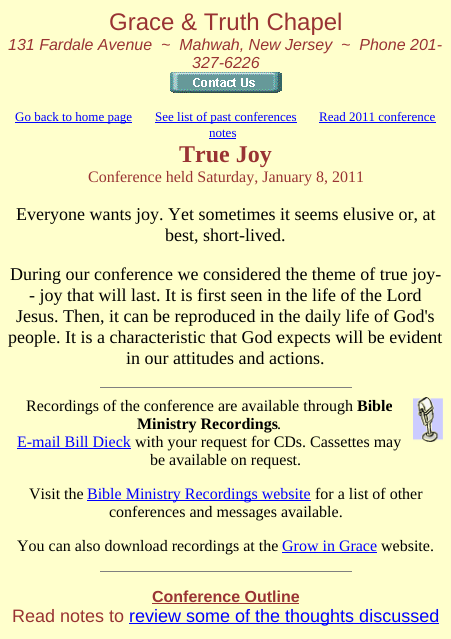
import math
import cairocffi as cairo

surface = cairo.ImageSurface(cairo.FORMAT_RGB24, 451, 639)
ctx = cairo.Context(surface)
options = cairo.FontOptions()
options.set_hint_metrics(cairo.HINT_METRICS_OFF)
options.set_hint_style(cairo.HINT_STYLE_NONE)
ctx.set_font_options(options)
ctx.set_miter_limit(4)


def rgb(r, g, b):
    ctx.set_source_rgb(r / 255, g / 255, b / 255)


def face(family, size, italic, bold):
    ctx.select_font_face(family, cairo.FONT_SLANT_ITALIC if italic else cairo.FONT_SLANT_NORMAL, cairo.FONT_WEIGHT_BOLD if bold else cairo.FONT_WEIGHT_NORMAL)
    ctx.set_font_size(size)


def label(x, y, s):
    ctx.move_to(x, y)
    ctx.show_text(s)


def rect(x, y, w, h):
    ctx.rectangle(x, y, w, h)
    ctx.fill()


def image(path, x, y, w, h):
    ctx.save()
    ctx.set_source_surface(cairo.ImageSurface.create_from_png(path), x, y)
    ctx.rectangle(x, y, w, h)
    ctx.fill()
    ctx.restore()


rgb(255, 255, 204)
ctx.paint()
face('Liberation Sans', 24, 0, 0)
rgb(153, 51, 51)
label(109, 30, 'Grace & Truth Chapel')
face('Liberation Sans', 16, 1, 0)
label(8, 50, '131 Fardale Avenue  ~  Mahwah, New Jersey  ~  Phone 201-')
label(192, 68, '327-6226')
image('image0.png', 170, 72, 112, 21)
rgb(0, 0, 255)
rect(15, 122, 117, 1)
face('Liberation Serif', 13, 0, 0)
label(15, 121, 'Go back to home page')
rect(155, 122, 142, 1)
label(155, 121, 'See list of past conferences')
label(319, 121, 'Read 2011 conference')
rect(319, 122, 117, 1)
label(209, 137, 'notes')
rect(209, 138, 27, 1)
face('Liberation Serif', 24, 0, 1)
rgb(153, 51, 51)
label(179, 162, 'True Joy')
face('Liberation Serif', 16, 0, 0)
label(88, 182, 'Conference held Saturday, January 8, 2011')
face('Liberation Serif', 18, 0, 0)
rgb(0, 0, 0)
label(16, 220, 'Everyone wants joy. Yet sometimes it seems elusive or, at')
label(165, 241, 'best, short-lived.')
label(10, 280, 'During our conference we considered the theme of true joy-')
label(29, 301, '- joy that will last. It is first seen in the life of the Lord')
label(16, 322, 'Jesus. Then, it can be reproduced in the daily life of God\'s')
label(8, 343, 'people. It is a characteristic that God expects will be evident')
label(126, 364, 'in our attitudes and actions.')
rgb(128, 128, 128)
rect(100, 387, 252, 1)
image('image1.png', 413, 397, 30, 45)
face('Liberation Serif', 16, 0, 0)
rgb(0, 0, 0)
label(26, 411, 'Recordings of the conference are available through')
face('Liberation Serif', 16, 0, 1)
label(357, 411, 'Bible')
label(137, 429, 'Ministry Recordings')
face('Liberation Serif', 16, 0, 0)
label(277, 429, '.')
rgb(0, 0, 255)
label(17, 447, 'E-mail Bill Dieck')
rect(17, 448, 114, 1)
rgb(0, 0, 0)
label(135, 447, 'with your request for CDs. Cassettes may')
label(150, 465, 'be available on request.')
label(29, 499, 'Visit the')
rgb(0, 0, 255)
rect(87, 500, 224, 1)
label(87, 499, 'Bible Ministry Recordings website')
rgb(0, 0, 0)
label(315, 499, 'for a list of other')
label(109, 517, 'conferences and messages available.')
label(17, 551, 'You can also download recordings at the')
rgb(0, 0, 255)
label(282, 551, 'Grow in Grace')
rect(282, 552, 95, 1)
rgb(0, 0, 0)
label(381, 551, 'website.')
rgb(128, 128, 128)
rect(100, 571, 252, 1)
face('Liberation Sans', 16, 0, 1)
rgb(153, 51, 51)
label(152, 602, 'Conference Outline')
rect(152, 603, 147, 1)
face('Liberation Sans', 18, 0, 0)
label(12, 622, 'Read notes to')
rgb(0, 0, 255)
rect(129, 623, 310, 1)
label(129, 622, 'review some of the thoughts discussed')
surface.write_to_png('render.png')
